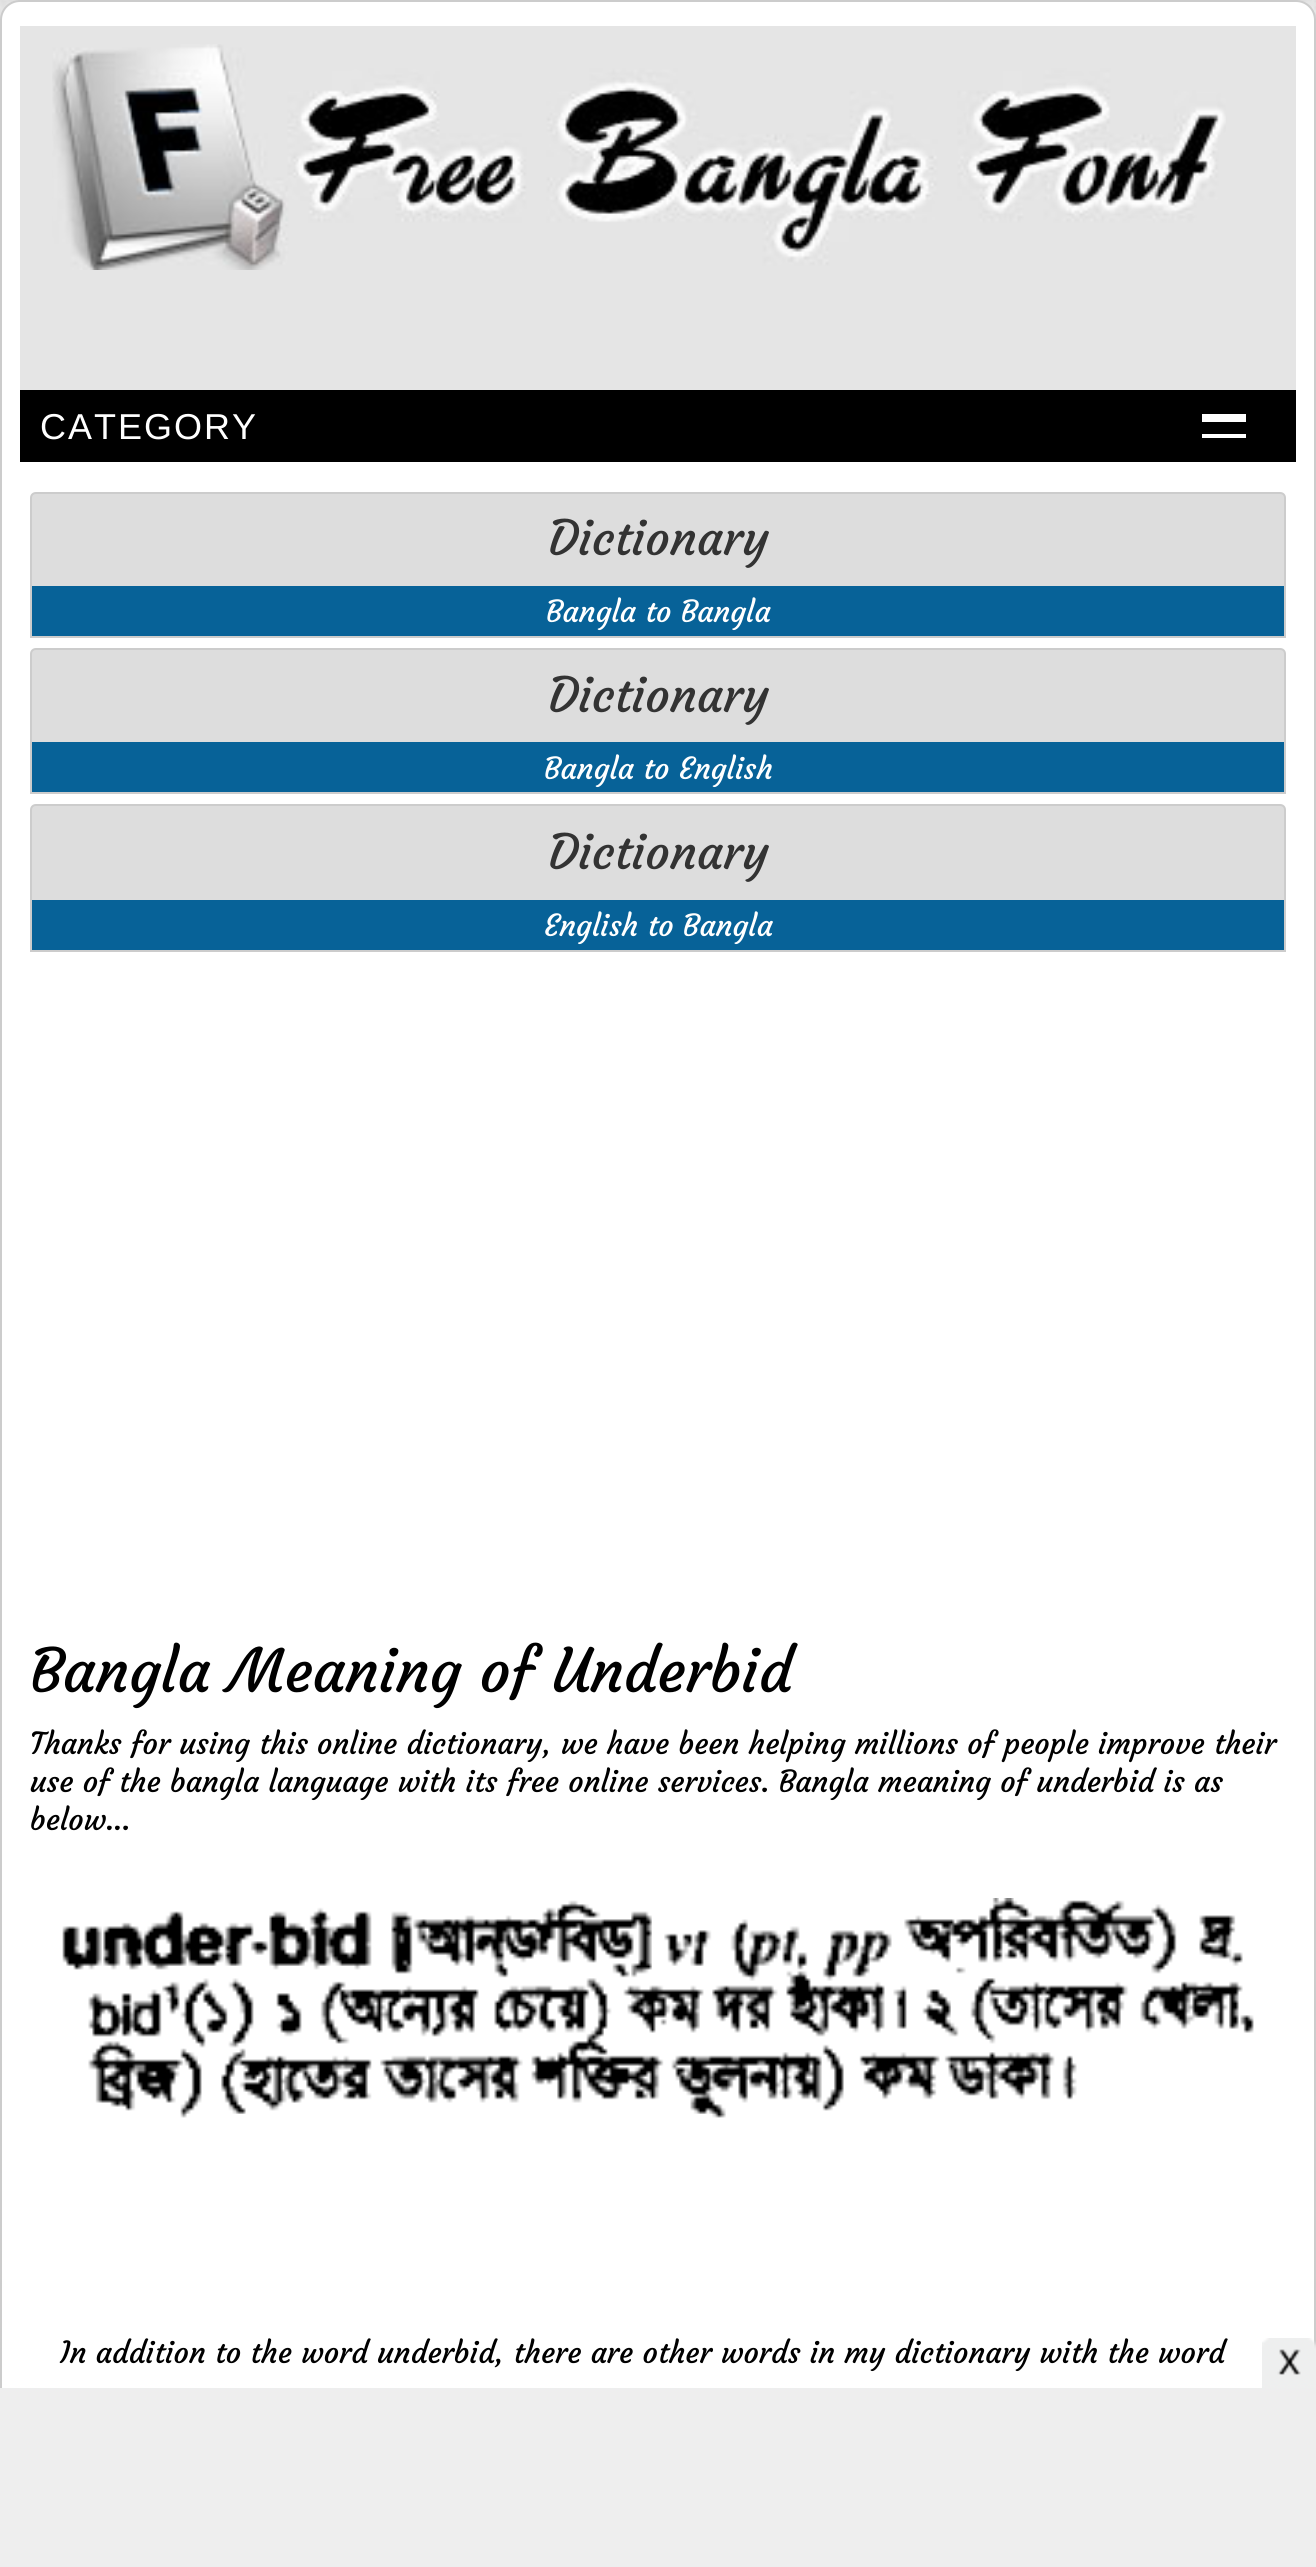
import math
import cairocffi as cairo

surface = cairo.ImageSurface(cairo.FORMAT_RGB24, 1316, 2567)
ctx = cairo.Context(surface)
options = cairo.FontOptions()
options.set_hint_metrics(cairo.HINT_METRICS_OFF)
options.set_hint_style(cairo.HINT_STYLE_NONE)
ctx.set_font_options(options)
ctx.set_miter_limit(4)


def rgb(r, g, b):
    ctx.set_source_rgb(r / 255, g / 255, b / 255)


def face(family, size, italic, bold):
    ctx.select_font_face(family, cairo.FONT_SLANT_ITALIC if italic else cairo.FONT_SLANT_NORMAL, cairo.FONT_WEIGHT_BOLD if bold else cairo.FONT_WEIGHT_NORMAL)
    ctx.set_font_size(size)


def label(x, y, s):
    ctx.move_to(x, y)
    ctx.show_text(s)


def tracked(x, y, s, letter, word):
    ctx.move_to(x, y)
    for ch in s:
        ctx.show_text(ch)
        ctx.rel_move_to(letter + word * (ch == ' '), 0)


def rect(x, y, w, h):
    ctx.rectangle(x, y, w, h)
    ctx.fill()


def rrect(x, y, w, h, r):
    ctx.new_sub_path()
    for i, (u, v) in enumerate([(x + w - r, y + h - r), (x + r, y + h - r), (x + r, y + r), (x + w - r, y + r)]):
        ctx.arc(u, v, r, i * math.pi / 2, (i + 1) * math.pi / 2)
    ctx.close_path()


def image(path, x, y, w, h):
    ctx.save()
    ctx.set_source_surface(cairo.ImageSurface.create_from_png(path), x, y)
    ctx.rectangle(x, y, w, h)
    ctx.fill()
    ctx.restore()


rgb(255, 255, 255)
ctx.paint()
image('image0.png', 0, 0, 1316, 20)
rgb(255, 255, 255)
rrect(1, 1, 1314, 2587, 19)
ctx.fill_preserve()
rgb(204, 204, 204)
ctx.stroke()
rgb(229, 229, 229)
rect(20, 26, 1276, 364)
image('image1.png', 52, 44, 1174, 226)
rgb(0, 0, 0)
rect(20, 390, 1276, 72)
face('Liberation Sans', 36, 0, 0)
rgb(255, 255, 255)
tracked(40, 439, 'CATEGORY', 2, 0)
rect(1202, 414, 44, 8)
rect(1202, 434, 44, 4)
rgb(221, 221, 221)
ctx.new_path()
ctx.move_to(36, 493)
ctx.line_to(1280, 493)
ctx.curve_to(1283, 493, 1285, 495, 1285, 498)
ctx.line_to(1285, 637)
ctx.line_to(31, 637)
ctx.line_to(31, 498)
ctx.curve_to(31, 495, 33, 493, 36, 493)
ctx.close_path()
ctx.fill_preserve()
rgb(204, 204, 204)
ctx.stroke()
face('Courgette', 48, 0, 0)
rgb(51, 51, 51)
label(548, 555, 'Dictionary')
rgb(7, 98, 152)
rect(32, 586, 1252, 50)
face('Courgette', 30, 0, 0)
rgb(255, 255, 255)
label(546, 622, 'Bangla to Bangla')
rgb(221, 221, 221)
ctx.new_path()
ctx.move_to(36, 649)
ctx.line_to(1280, 649)
ctx.curve_to(1283, 649, 1285, 651, 1285, 654)
ctx.line_to(1285, 793)
ctx.line_to(31, 793)
ctx.line_to(31, 654)
ctx.curve_to(31, 651, 33, 649, 36, 649)
ctx.close_path()
ctx.fill_preserve()
rgb(204, 204, 204)
ctx.stroke()
face('Courgette', 48, 0, 0)
rgb(51, 51, 51)
label(548, 712, 'Dictionary')
rgb(7, 98, 152)
rect(32, 742, 1252, 50)
face('Courgette', 30, 0, 0)
rgb(255, 255, 255)
label(544, 779, 'Bangla to English')
rgb(221, 221, 221)
ctx.new_path()
ctx.move_to(36, 805)
ctx.line_to(1280, 805)
ctx.curve_to(1283, 805, 1285, 807, 1285, 810)
ctx.line_to(1285, 951)
ctx.line_to(31, 951)
ctx.line_to(31, 810)
ctx.curve_to(31, 807, 33, 805, 36, 805)
ctx.close_path()
ctx.fill_preserve()
rgb(204, 204, 204)
ctx.stroke()
face('Courgette', 48, 0, 0)
rgb(51, 51, 51)
label(548, 869, 'Dictionary')
rgb(7, 98, 152)
rect(32, 900, 1252, 50)
face('Courgette', 30, 0, 0)
rgb(255, 255, 255)
label(544, 936, 'English to Bangla')
face('Courgette', 60, 0, 0)
rgb(0, 0, 0)
label(30, 1692, 'Bangla Meaning of Underbid')
face('Courgette', 30, 0, 0)
label(30, 1754, 'Thanks for using this online dictionary, we have been helping millions of people improve their')
label(30, 1792, 'use of the bangla language with its free online services. Bangla meaning of underbid is as')
label(30, 1830, 'below...')
image('image2.png', 62, 1898, 1192, 220)
label(60, 2363, 'In addition to the word underbid, there are other words in my dictionary with the word')
image('image3.png', 1262, 2338, 54, 50)
rgb(238, 238, 238)
rect(0, 2388, 1316, 179)
surface.write_to_png('render.png')
